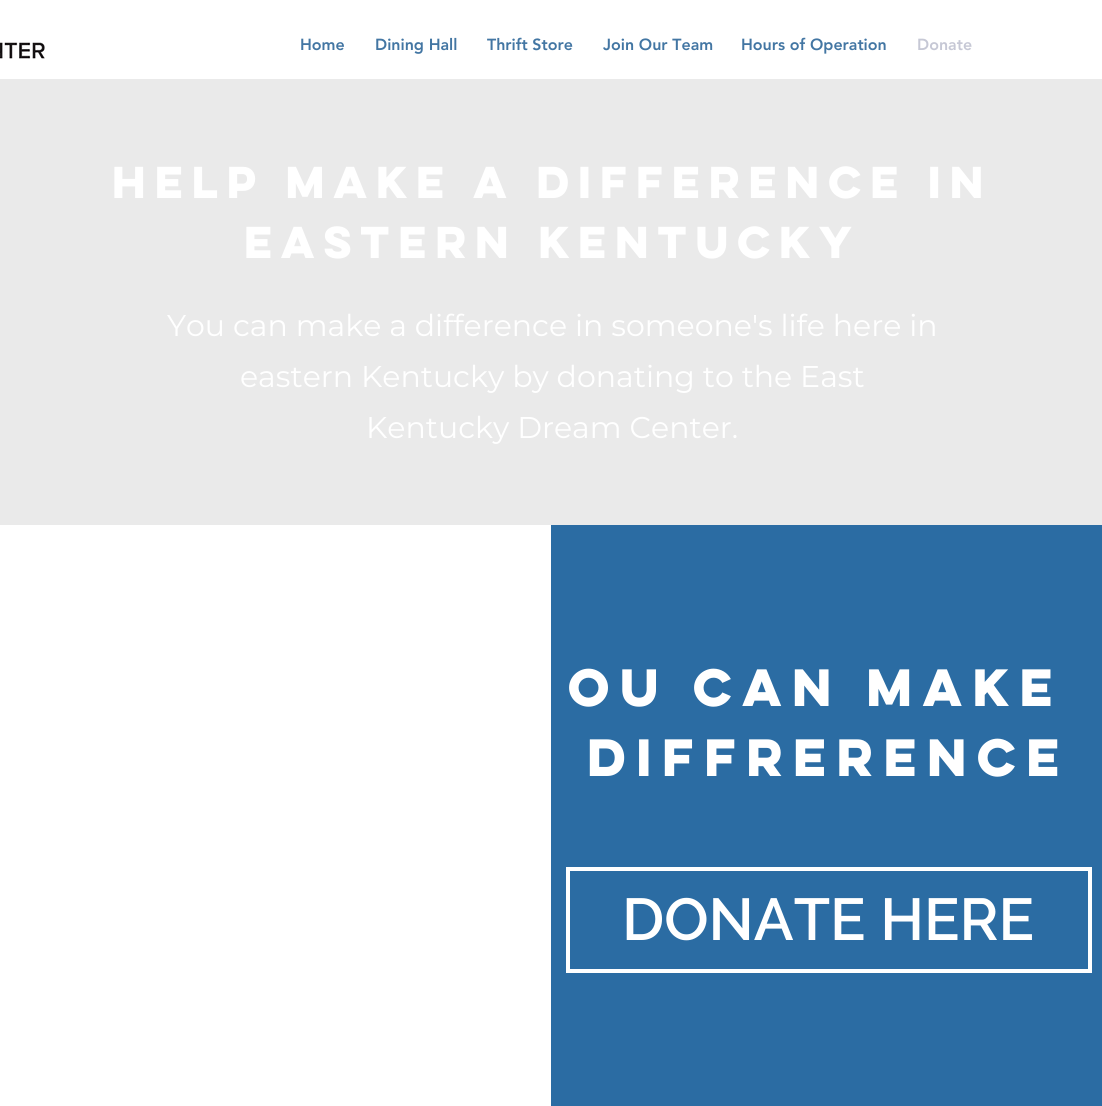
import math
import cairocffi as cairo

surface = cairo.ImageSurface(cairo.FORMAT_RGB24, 1102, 1106)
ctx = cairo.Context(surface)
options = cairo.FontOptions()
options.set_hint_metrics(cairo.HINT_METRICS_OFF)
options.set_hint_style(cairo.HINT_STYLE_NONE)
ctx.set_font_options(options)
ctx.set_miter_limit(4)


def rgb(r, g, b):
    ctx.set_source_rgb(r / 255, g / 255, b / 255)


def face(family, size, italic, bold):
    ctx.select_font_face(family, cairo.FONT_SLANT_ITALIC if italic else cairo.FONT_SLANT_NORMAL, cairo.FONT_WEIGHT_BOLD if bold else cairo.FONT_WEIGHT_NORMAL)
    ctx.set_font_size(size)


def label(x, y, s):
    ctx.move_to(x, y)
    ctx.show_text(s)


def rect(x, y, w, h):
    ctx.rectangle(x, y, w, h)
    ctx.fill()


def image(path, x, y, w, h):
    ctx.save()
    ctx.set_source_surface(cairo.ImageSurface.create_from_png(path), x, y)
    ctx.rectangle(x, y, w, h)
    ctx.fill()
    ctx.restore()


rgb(255, 255, 255)
ctx.paint()
image('image0.png', 0, 42, 45, 17)
face('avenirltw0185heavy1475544 Black', 16, 0, 0)
rgb(67, 118, 163)
label(300, 50, 'Home')
label(375, 50, 'Dining Hall')
label(487, 50, 'Thrift Store')
label(603, 50, 'Join Our Team')
label(741, 50, 'Hours of Operation')
rgb(198, 200, 213)
label(917, 50, 'Donate')
rgb(234, 234, 234)
rect(0, 79, 1102, 446)
face('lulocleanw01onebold', 40, 0, 1)
rgb(255, 255, 255)
label(112, 198, 'HELP MAKE A DIFFERENCE IN')
label(244, 258, 'Eastern Kentucky')
face('Montserrat', 30, 0, 0)
label(167, 336, 'You can make a difference in someone\'s life here in')
label(240, 387, 'eastern Kentucky by donating to the East')
label(366, 438, 'Kentucky Dream Center.')
rgb(43, 108, 163)
rect(551, 525, 551, 581)
face('lulocleanw01onebold', 47, 0, 1)
rgb(255, 255, 255)
label(568, 706, 'OU CAN MAKE')
label(587, 776, 'DIFFRERENCE')
ctx.rectangle(568, 869, 522, 102)
ctx.set_line_width(4)
ctx.stroke()
face('Raleway SemiBold', 59, 0, 0)
label(622, 940, 'DONATE HERE')
surface.write_to_png('render.png')
